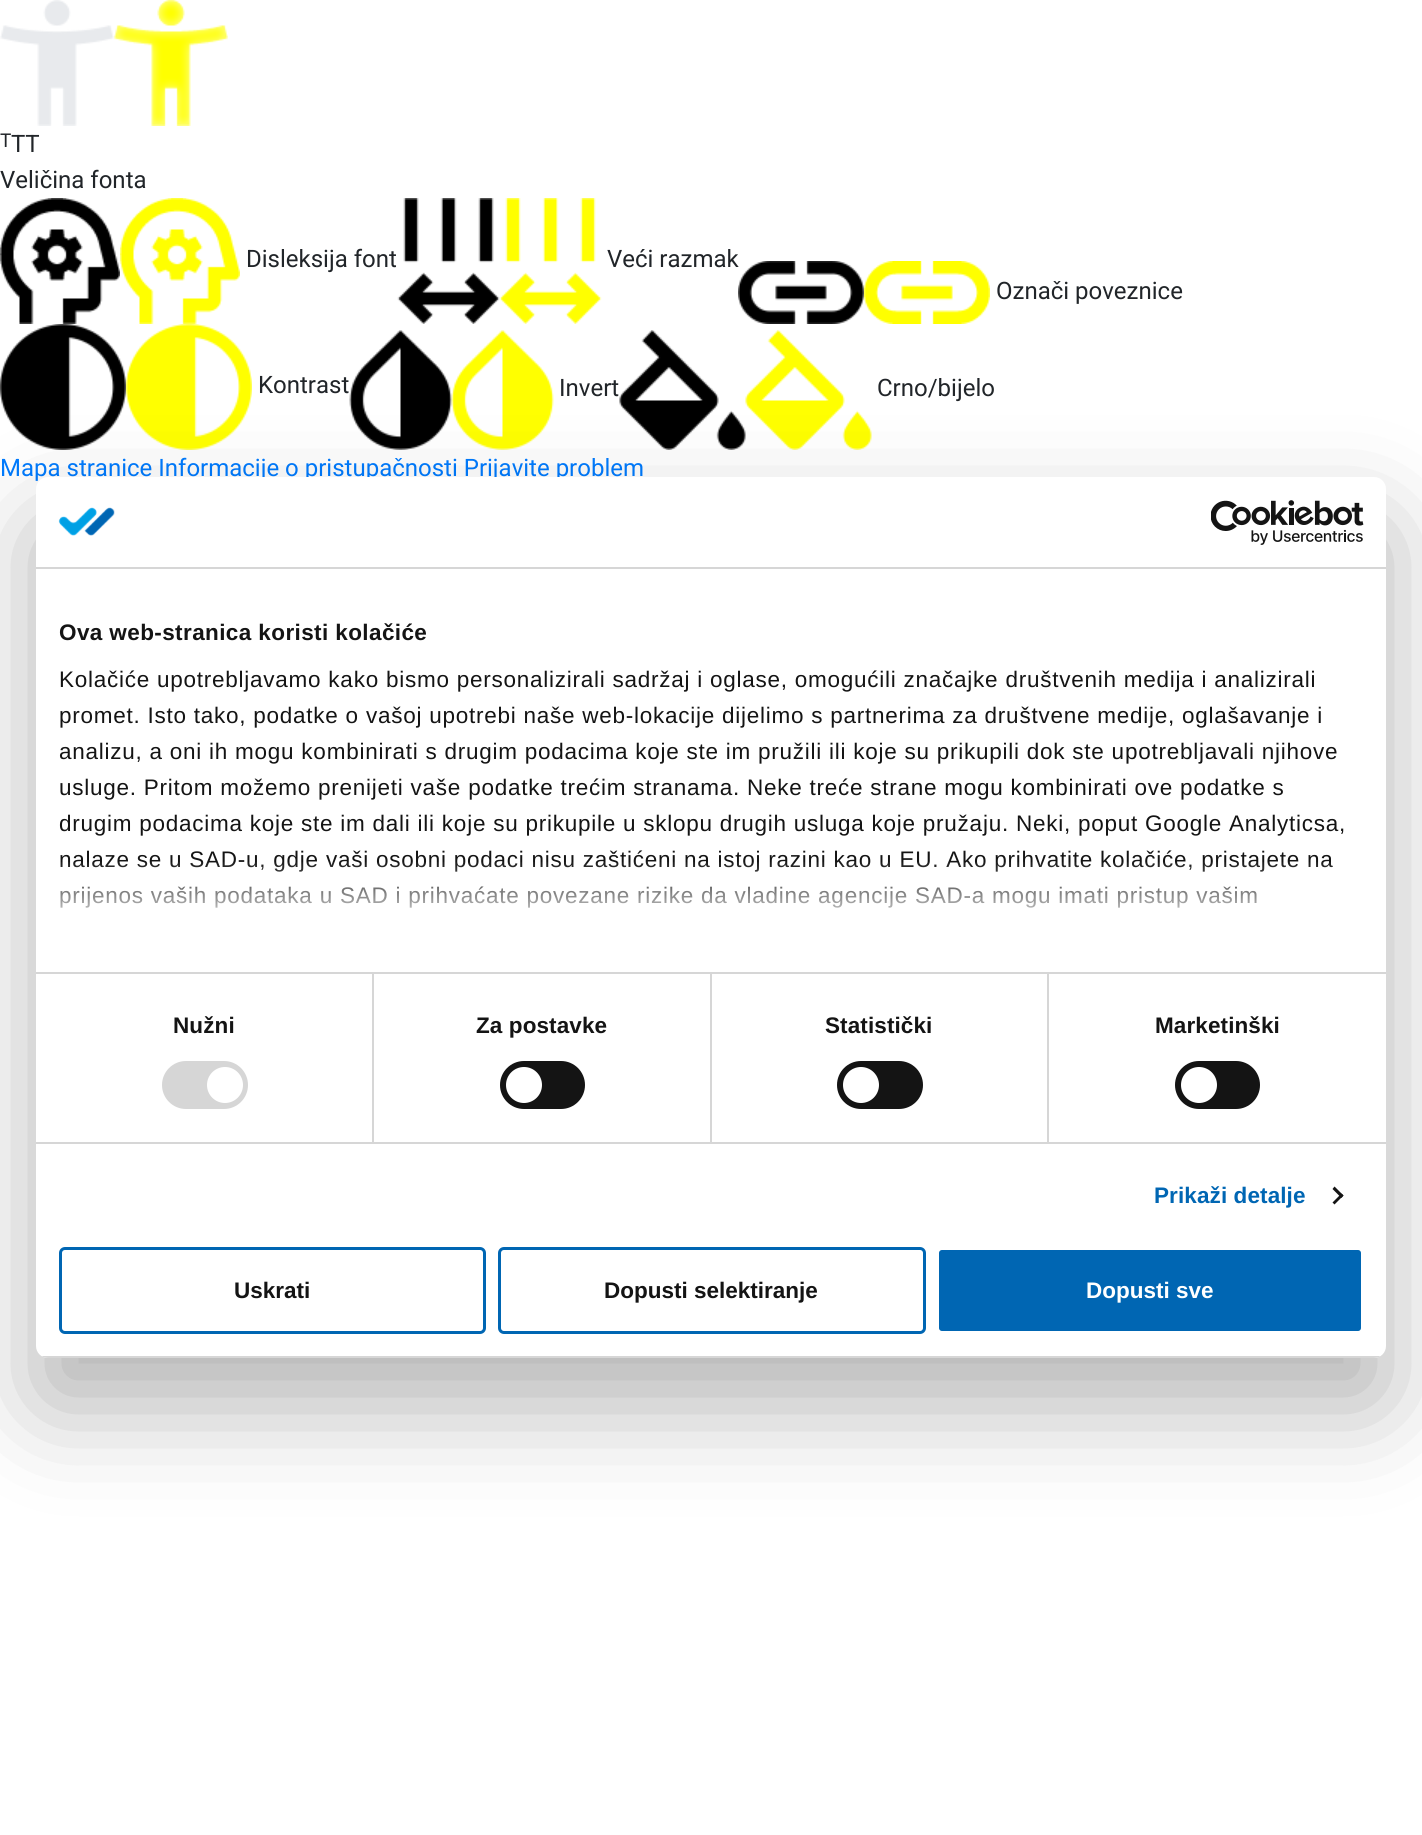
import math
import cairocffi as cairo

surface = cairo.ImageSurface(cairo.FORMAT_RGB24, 1422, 1835)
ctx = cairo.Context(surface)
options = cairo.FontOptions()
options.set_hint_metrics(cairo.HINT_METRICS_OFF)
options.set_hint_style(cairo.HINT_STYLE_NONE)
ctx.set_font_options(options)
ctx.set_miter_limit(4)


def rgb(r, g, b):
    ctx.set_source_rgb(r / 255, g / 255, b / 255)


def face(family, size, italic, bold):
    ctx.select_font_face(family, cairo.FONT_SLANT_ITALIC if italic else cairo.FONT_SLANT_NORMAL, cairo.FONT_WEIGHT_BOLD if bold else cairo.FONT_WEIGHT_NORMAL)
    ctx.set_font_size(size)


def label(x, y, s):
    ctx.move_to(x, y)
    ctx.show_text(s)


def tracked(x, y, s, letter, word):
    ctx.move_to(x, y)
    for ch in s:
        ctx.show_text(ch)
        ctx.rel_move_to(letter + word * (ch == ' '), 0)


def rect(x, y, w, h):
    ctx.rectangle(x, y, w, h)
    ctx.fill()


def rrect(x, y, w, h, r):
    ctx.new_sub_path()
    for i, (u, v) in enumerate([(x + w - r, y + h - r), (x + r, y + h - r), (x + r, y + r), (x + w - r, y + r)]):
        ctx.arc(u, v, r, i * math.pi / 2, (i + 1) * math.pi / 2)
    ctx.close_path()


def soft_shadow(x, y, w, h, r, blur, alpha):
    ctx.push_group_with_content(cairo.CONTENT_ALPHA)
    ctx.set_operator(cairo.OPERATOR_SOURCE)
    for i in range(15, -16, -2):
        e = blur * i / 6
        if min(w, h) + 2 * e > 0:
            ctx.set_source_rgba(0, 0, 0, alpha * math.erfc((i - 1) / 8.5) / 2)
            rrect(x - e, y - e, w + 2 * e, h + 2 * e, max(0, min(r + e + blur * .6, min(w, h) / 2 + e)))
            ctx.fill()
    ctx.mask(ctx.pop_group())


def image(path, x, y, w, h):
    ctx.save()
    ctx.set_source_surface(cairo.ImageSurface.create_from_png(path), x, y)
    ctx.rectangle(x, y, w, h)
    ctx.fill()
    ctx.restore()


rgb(255, 255, 255)
ctx.paint()
image('image0.png', 0, 0, 114, 126)
image('image1.png', 114, 0, 114, 126)
face('Roboto', 19, 0, 0)
rgb(33, 37, 41)
label(0, 147, 'T')
face('Roboto', 24, 0, 0)
label(11, 152, 'TT')
label(0, 188, 'Veličina fonta')
image('image2.png', 0, 198, 120, 126)
image('image3.png', 120, 198, 120, 126)
label(246, 267, 'Disleksija font')
image('image4.png', 397, 198, 103, 126)
image('image5.png', 499, 198, 103, 126)
label(607, 267, 'Veći razmak')
image('image6.png', 738, 261, 126, 63)
image('image7.png', 864, 261, 126, 63)
label(996, 299, 'Označi poveznice')
image('image8.png', 0, 324, 126, 126)
image('image9.png', 126, 324, 126, 126)
label(258, 393, 'Kontrast')
image('image10.png', 349, 330, 103, 120)
image('image11.png', 451, 330, 103, 120)
label(559, 396, 'Invert')
image('image12.png', 619, 330, 127, 120)
image('image13.png', 745, 330, 127, 120)
label(877, 396, 'Crno/bijelo')
rgb(0, 123, 255)
label(0, 476, 'Mapa stranice Informacije o pristupačnosti Prijavite problem')
rgb(0, 0, 0)
soft_shadow(36, 525, 1350, 881, 12, 51, 0.3)
rgb(255, 255, 255)
rrect(36, 477, 1350, 881, 12)
ctx.fill()
rgb(214, 214, 214)
rect(36, 567, 1350, 2)
image('image14.png', 58, 507, 57, 29)
image('image15.png', 1211, 500, 153, 45)
rect(36, 972, 1350, 2)
face('Liberation Sans', 22.5, 0, 1)
rgb(20, 20, 20)
tracked(59, 640, 'Ova web-stranica koristi kolačiće', 0.4, 0)
face('Liberation Sans', 22.5, 0, 0)
tracked(59, 687, 'Kolačiće upotrebljavamo kako bismo personalizirali sadržaj i oglase, omogućili značajke društvenih medija i analizirali', 0.75, 0)
tracked(59, 723, 'promet. Isto tako, podatke o vašoj upotrebi naše web-lokacije dijelimo s partnerima za društvene medije, oglašavanje i', 0.75, 0)
tracked(59, 759, 'analizu, a oni ih mogu kombinirati s drugim podacima koje ste im pružili ili koje su prikupili dok ste upotrebljavali njihove', 0.75, 0)
tracked(59, 795, 'usluge. Pritom možemo prenijeti vaše podatke trećim stranama. Neke treće strane mogu kombinirati ove podatke s', 0.75, 0)
tracked(59, 831, 'drugim podacima koje ste im dali ili koje su prikupile u sklopu drugih usluga koje pružaju. Neki, poput Google Analyticsa,', 0.75, 0)
tracked(59, 867, 'nalaze se u SAD-u, gdje vaši osobni podaci nisu zaštićeni na istoj razini kao u EU. Ako prihvatite kolačiće, pristajete na', 0.75, 0)
tracked(59, 903, 'prijenos vaših podataka u SAD i prihvaćate povezane rizike da vladine agencije SAD-a mogu imati pristup vašim', 0.75, 0)
gradient = cairo.LinearGradient(701, 973, 701, 860)
gradient.add_color_stop_rgba(0, 1, 1, 1, 1)
gradient.add_color_stop_rgba(0.5, 1, 1, 1, 0.8)
gradient.add_color_stop_rgba(1, 1, 1, 1, 0)
ctx.set_source(gradient)
rect(59, 862, 1274, 46)
rgb(214, 214, 214)
rect(36, 1142, 1350, 2)
rect(372, 974, 2, 168)
face('Liberation Sans', 22.5, 0, 1)
rgb(20, 20, 20)
tracked(173, 1033, 'Nužni', 0.1, 0)
rgb(214, 214, 214)
rrect(162, 1061, 86, 48, 24)
ctx.fill()
rgb(255, 255, 255)
ctx.arc(225, 1085, 18, 0, 2 * math.pi)
ctx.fill()
rgb(214, 214, 214)
rect(710, 974, 2, 168)
rgb(20, 20, 20)
tracked(476, 1033, 'Za postavke', 0.1, 0)
rrect(500, 1061, 85, 48, 24)
ctx.fill()
rgb(255, 255, 255)
ctx.arc(524, 1085, 18, 0, 2 * math.pi)
ctx.fill()
rgb(214, 214, 214)
rect(1047, 974, 2, 168)
rgb(20, 20, 20)
tracked(825, 1033, 'Statistički', 0.1, 0)
rrect(837, 1061, 86, 48, 24)
ctx.fill()
rgb(255, 255, 255)
ctx.arc(861, 1085, 18, 0, 2 * math.pi)
ctx.fill()
rgb(20, 20, 20)
tracked(1155, 1033, 'Marketinški', 0.1, 0)
rrect(1175, 1061, 85, 48, 24)
ctx.fill()
rgb(255, 255, 255)
ctx.arc(1199, 1085, 18, 0, 2 * math.pi)
ctx.fill()
rgb(0, 102, 179)
tracked(1154, 1203, 'Prikaži detalje', 0.1, 0)
rgb(20, 20, 20)
ctx.new_path()
ctx.move_to(1334.5, 1186.5)
ctx.line_to(1343.5, 1195.5)
ctx.line_to(1341.5, 1198)
ctx.line_to(1332.5, 1189)
ctx.close_path()
ctx.fill()
ctx.new_path()
ctx.move_to(1341.5, 1193.5)
ctx.line_to(1343.5, 1195.5)
ctx.line_to(1334.5, 1204.5)
ctx.line_to(1332.5, 1202.5)
ctx.close_path()
ctx.fill()
ctx.save()
rrect(36, 477, 1350, 881, 12)
ctx.clip()
rgb(214, 214, 214)
rect(36, 1356, 1350, 2)
ctx.restore()
rrect(60.5, 1248.5, 424, 84, 4.5)
rgb(0, 102, 179)
ctx.set_line_width(3)
ctx.stroke()
rgb(20, 20, 20)
label(234, 1298, 'Uskrati')
rrect(499.5, 1248.5, 425, 84, 4.5)
rgb(0, 102, 179)
ctx.stroke()
rgb(20, 20, 20)
label(604, 1298, 'Dopusti selektiranje')
rgb(0, 102, 179)
rrect(937.5, 1248.5, 425, 84, 4.5)
ctx.fill_preserve()
rgb(255, 255, 255)
ctx.stroke()
label(1086, 1298, 'Dopusti sve')
surface.write_to_png('render.png')
